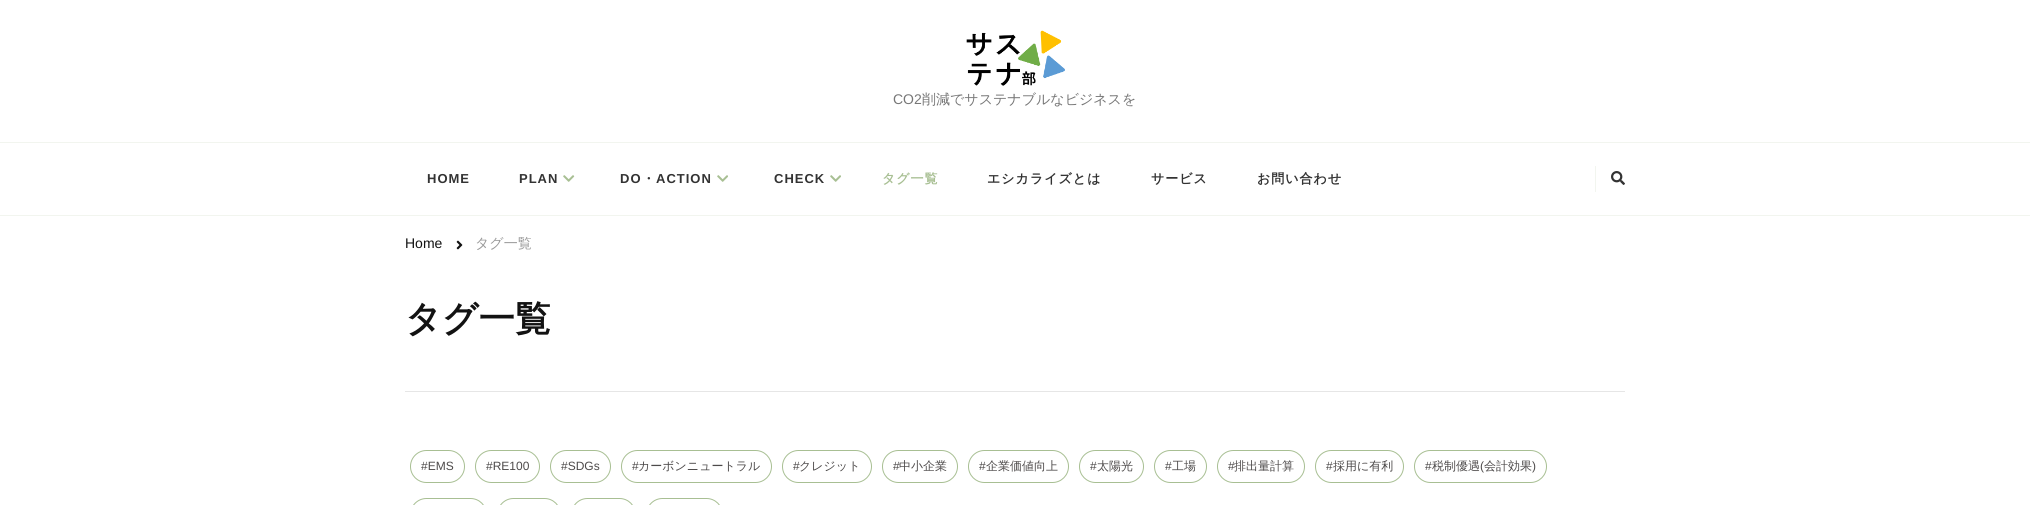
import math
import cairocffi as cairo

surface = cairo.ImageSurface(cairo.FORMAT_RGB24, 2030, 505)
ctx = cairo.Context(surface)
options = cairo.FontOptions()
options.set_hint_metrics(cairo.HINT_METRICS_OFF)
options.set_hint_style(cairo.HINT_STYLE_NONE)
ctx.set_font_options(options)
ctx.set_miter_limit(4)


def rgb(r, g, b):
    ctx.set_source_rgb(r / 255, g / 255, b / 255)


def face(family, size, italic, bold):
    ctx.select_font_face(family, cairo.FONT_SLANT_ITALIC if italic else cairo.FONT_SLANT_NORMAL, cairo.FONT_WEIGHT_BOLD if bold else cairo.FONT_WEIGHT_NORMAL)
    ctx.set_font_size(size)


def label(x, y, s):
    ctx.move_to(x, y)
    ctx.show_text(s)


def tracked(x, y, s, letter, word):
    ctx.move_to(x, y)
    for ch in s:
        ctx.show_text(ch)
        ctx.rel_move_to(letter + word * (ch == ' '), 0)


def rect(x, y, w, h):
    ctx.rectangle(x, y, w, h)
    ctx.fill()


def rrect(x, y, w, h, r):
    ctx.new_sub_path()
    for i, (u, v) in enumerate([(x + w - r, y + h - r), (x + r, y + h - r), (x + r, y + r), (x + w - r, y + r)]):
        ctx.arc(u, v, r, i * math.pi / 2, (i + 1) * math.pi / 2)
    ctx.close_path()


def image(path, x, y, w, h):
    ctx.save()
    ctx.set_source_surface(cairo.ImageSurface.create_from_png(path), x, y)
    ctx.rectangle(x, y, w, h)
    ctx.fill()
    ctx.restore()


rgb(255, 255, 255)
ctx.paint()
image('image0.png', 966, 30, 99, 56)
face('Liberation Sans', 14, 0, 0)
rgb(119, 119, 119)
label(893, 104, 'CO2')
face('WenQuanYi Zen Hei Medium', 14, 0, 0)
label(922, 104, '削減でサステナブルなビジネスを')
rgb(242, 245, 239)
rect(0, 142, 2030, 1)
rect(0, 215, 2030, 1)
face('Liberation Sans', 13, 0, 1)
rgb(51, 51, 51)
tracked(427, 183, 'HOME', 1, 0)
tracked(519, 183, 'PLAN', 1, 0)
image('image1.png', 563, 175, 12, 7)
tracked(620, 183, 'DO', 1, 0)
face('WenQuanYi Zen Hei', 13, 0, 1)
tracked(642, 183, '・', 1, 0)
face('Liberation Sans', 13, 0, 1)
tracked(656, 183, 'ACTION', 1, 0)
image('image2.png', 717, 175, 11, 7)
tracked(774, 183, 'CHECK', 1, 0)
image('image2.png', 830, 175, 11, 7)
face('WenQuanYi Zen Hei', 13, 0, 1)
rgb(168, 191, 147)
tracked(882, 183, 'タグ一覧', 1, 0)
rgb(51, 51, 51)
tracked(987, 183, 'エシカライズとは', 1, 0)
tracked(1151, 183, 'サービス', 1, 0)
tracked(1257, 183, 'お問い合わせ', 1, 0)
rgb(242, 245, 239)
rect(1595, 166, 1, 26)
image('image3.png', 1611, 171, 14, 14)
face('Liberation Sans', 14, 0, 0)
rgb(18, 18, 18)
label(405, 248, 'Home')
image('image4.png', 456, 240, 7, 10)
face('WenQuanYi Zen Hei Medium', 14, 0, 0)
rgb(153, 153, 153)
label(475, 248, 'タグ一覧')
rgb(230, 230, 230)
rect(405, 391, 1220, 1)
face('WenQuanYi Zen Hei', 36, 0, 1)
rgb(18, 18, 18)
label(405, 331, 'タグ一覧')
rrect(410.5, 450.5, 54, 32, 16)
rgb(168, 191, 147)
ctx.set_line_width(1)
ctx.stroke()
face('Liberation Sans', 12, 0, 0)
rgb(77, 74, 74)
label(421, 470, '#EMS')
rrect(475.5, 450.5, 64, 32, 16)
rgb(168, 191, 147)
ctx.stroke()
rgb(77, 74, 74)
label(486, 470, '#RE100')
rrect(550.5, 450.5, 60, 32, 16)
rgb(168, 191, 147)
ctx.stroke()
rgb(77, 74, 74)
label(561, 470, '#SDGs')
rrect(621.5, 450.5, 150, 32, 16)
rgb(168, 191, 147)
ctx.stroke()
rgb(77, 74, 74)
label(632, 470, '#')
face('WenQuanYi Zen Hei Medium', 12, 0, 0)
label(638, 470, 'カーボンニュートラル')
rrect(782.5, 450.5, 89, 32, 16)
rgb(168, 191, 147)
ctx.stroke()
face('Liberation Sans', 12, 0, 0)
rgb(77, 74, 74)
label(793, 470, '#')
face('WenQuanYi Zen Hei Medium', 12, 0, 0)
label(799, 470, 'クレジット')
rrect(882.5, 450.5, 75, 32, 16)
rgb(168, 191, 147)
ctx.stroke()
face('Liberation Sans', 12, 0, 0)
rgb(77, 74, 74)
label(893, 470, '#')
face('WenQuanYi Zen Hei Medium', 12, 0, 0)
label(899, 470, '中小企業')
rrect(968.5, 450.5, 100, 32, 16)
rgb(168, 191, 147)
ctx.stroke()
face('Liberation Sans', 12, 0, 0)
rgb(77, 74, 74)
label(979, 470, '#')
face('WenQuanYi Zen Hei Medium', 12, 0, 0)
label(986, 470, '企業価値向上')
rrect(1079.5, 450.5, 64, 32, 16)
rgb(168, 191, 147)
ctx.stroke()
face('Liberation Sans', 12, 0, 0)
rgb(77, 74, 74)
label(1090, 470, '#')
face('WenQuanYi Zen Hei Medium', 12, 0, 0)
label(1097, 470, '太陽光')
rrect(1154.5, 450.5, 52, 32, 16)
rgb(168, 191, 147)
ctx.stroke()
face('Liberation Sans', 12, 0, 0)
rgb(77, 74, 74)
label(1165, 470, '#')
face('WenQuanYi Zen Hei Medium', 12, 0, 0)
label(1172, 470, '工場')
rrect(1217.5, 450.5, 87, 32, 16)
rgb(168, 191, 147)
ctx.stroke()
face('Liberation Sans', 12, 0, 0)
rgb(77, 74, 74)
label(1228, 470, '#')
face('WenQuanYi Zen Hei Medium', 12, 0, 0)
label(1234, 470, '排出量計算')
rrect(1315.5, 450.5, 88, 32, 16)
rgb(168, 191, 147)
ctx.stroke()
face('Liberation Sans', 12, 0, 0)
rgb(77, 74, 74)
label(1326, 470, '#')
face('WenQuanYi Zen Hei Medium', 12, 0, 0)
label(1333, 470, '採用に有利')
rrect(1414.5, 450.5, 132, 32, 16)
rgb(168, 191, 147)
ctx.stroke()
face('Liberation Sans', 12, 0, 0)
rgb(77, 74, 74)
label(1425, 470, '#')
face('WenQuanYi Zen Hei Medium', 12, 0, 0)
label(1432, 470, '税制優遇')
face('Liberation Sans', 12, 0, 0)
label(1480, 470, '(')
face('WenQuanYi Zen Hei Medium', 12, 0, 0)
label(1484, 470, '会計効果')
face('Liberation Sans', 12, 0, 0)
label(1532, 470, ')')
rrect(410.5, 498.5, 76, 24, 16)
rgb(168, 191, 147)
ctx.stroke()
rrect(497.5, 498.5, 63, 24, 16)
ctx.stroke()
rrect(571.5, 498.5, 64, 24, 16)
ctx.stroke()
rrect(646.5, 498.5, 76, 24, 16)
ctx.stroke()
surface.write_to_png('render.png')
